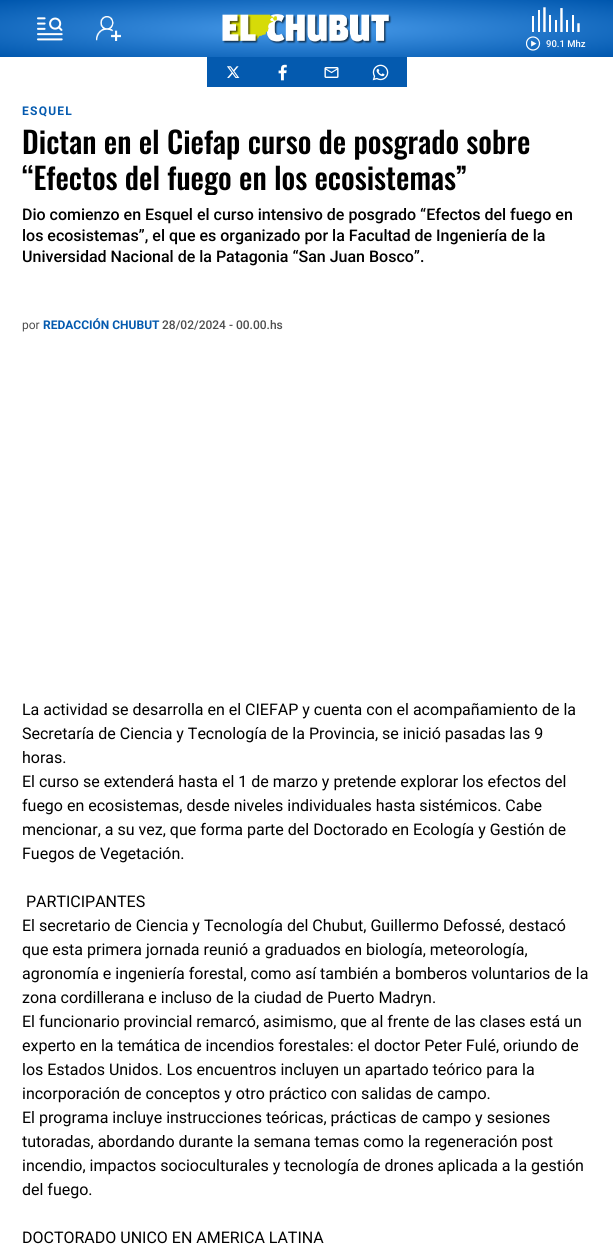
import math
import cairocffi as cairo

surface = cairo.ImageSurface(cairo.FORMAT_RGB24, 613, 1247)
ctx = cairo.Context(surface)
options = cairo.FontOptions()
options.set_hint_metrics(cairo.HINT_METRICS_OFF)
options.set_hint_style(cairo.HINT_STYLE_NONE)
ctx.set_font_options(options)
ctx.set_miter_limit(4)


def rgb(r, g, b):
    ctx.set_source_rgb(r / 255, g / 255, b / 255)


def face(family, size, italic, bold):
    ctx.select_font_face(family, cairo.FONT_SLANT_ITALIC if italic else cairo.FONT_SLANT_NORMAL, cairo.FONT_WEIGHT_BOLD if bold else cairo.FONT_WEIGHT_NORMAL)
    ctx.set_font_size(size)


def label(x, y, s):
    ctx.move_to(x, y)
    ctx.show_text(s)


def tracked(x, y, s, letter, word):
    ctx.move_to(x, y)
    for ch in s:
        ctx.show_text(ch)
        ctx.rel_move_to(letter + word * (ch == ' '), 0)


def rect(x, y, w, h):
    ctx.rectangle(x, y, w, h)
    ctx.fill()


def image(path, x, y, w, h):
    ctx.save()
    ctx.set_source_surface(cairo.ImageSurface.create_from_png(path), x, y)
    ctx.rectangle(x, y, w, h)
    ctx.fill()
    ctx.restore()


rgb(255, 255, 255)
ctx.paint()
gradient = cairo.RadialGradient(0, 0, 0, 0, 0, 1)
gradient.set_matrix(cairo.Matrix(1 / 433, 0, 0, 1 / 40, -1 * 307 / 433, -1 * 29 / 40))
gradient.add_color_stop_rgba(0, 0.286, 0.608, 0.918, 1)
gradient.add_color_stop_rgba(1, 0, 0.341, 0.682, 1)
ctx.set_source(gradient)
rect(0, 0, 613, 57)
image('image0.png', 37, 17, 26, 24)
image('image1.png', 96, 16, 25, 25)
image('image2.png', 222, 14, 170, 30)
image('image3.png', 526, 7, 54, 44)
face('Roboto Medium', 9.5, 0, 0)
rgb(255, 255, 255)
label(546, 47, '90.1 Mhz')
rgb(4, 90, 175)
rect(207, 57, 200, 30)
image('image4.png', 227, 66, 13, 12)
image('image5.png', 278, 64, 9, 17)
image('image6.png', 324, 67, 15, 11)
image('image7.png', 372, 64, 17, 17)
face('Roboto', 12, 0, 1)
tracked(22, 115, 'ESQUEL', 1.25, 0)
face('Oswald Medium', 30, 0, 0)
rgb(0, 0, 0)
label(22, 154, 'Dictan en el Ciefap curso de posgrado sobre')
ctx.save()
ctx.rectangle(22, 123, 569, 72)
ctx.clip()
label(22, 190, '“Efectos del fuego en los ecosistemas”')
ctx.restore()
face('Roboto Medium', 16, 0, 0)
label(22, 220, 'Dio comienzo en Esquel el curso intensivo de posgrado “Efectos del fuego en')
label(22, 241, 'los ecosistemas”, el que es organizado por la Facultad de Ingeniería de la')
label(22, 262, 'Universidad Nacional de la Patagonia “San Juan Bosco”.')
face('Roboto', 12, 0, 0)
rgb(77, 77, 77)
label(22, 329, 'por')
face('Roboto', 12, 0, 1)
rgb(4, 90, 175)
label(43, 329, 'REDACCIÓN CHUBUT')
face('Roboto Medium', 12, 0, 0)
rgb(77, 77, 77)
label(162, 329, '28/02/2024 - 00.00.hs')
face('Roboto', 16, 0, 0)
rgb(0, 0, 0)
label(22, 715, 'La actividad se desarrolla en el CIEFAP y cuenta con el acompañamiento de la')
label(22, 739, 'Secretaría de Ciencia y Tecnología de la Provincia, se inició pasadas las 9')
label(22, 763, 'horas.')
label(22, 787, 'El curso se extenderá hasta el 1 de marzo y pretende explorar los efectos del')
label(22, 811, 'fuego en ecosistemas, desde niveles individuales hasta sistémicos. Cabe')
label(22, 835, 'mencionar, a su vez, que forma parte del Doctorado en Ecología y Gestión de')
label(22, 859, 'Fuegos de Vegetación.')
label(26, 907, 'PARTICIPANTES')
label(22, 931, 'El secretario de Ciencia y Tecnología del Chubut, Guillermo Defossé, destacó')
label(22, 955, 'que esta primera jornada reunió a graduados en biología, meteorología,')
label(22, 979, 'agronomía e ingeniería forestal, como así también a bomberos voluntarios de la')
label(22, 1003, 'zona cordillerana e incluso de la ciudad de Puerto Madryn.')
label(22, 1027, 'El funcionario provincial remarcó, asimismo, que al frente de las clases está un')
label(22, 1051, 'experto en la temática de incendios forestales: el doctor Peter Fulé, oriundo de')
label(22, 1075, 'los Estados Unidos. Los encuentros incluyen un apartado teórico para la')
label(22, 1099, 'incorporación de conceptos y otro práctico con salidas de campo.')
label(22, 1123, 'El programa incluye instrucciones teóricas, prácticas de campo y sesiones')
label(22, 1147, 'tutoradas, abordando durante la semana temas como la regeneración post')
label(22, 1171, 'incendio, impactos socioculturales y tecnología de drones aplicada a la gestión')
label(22, 1195, 'del fuego.')
label(22, 1243, 'DOCTORADO UNICO EN AMERICA LATINA')
surface.write_to_png('render.png')
